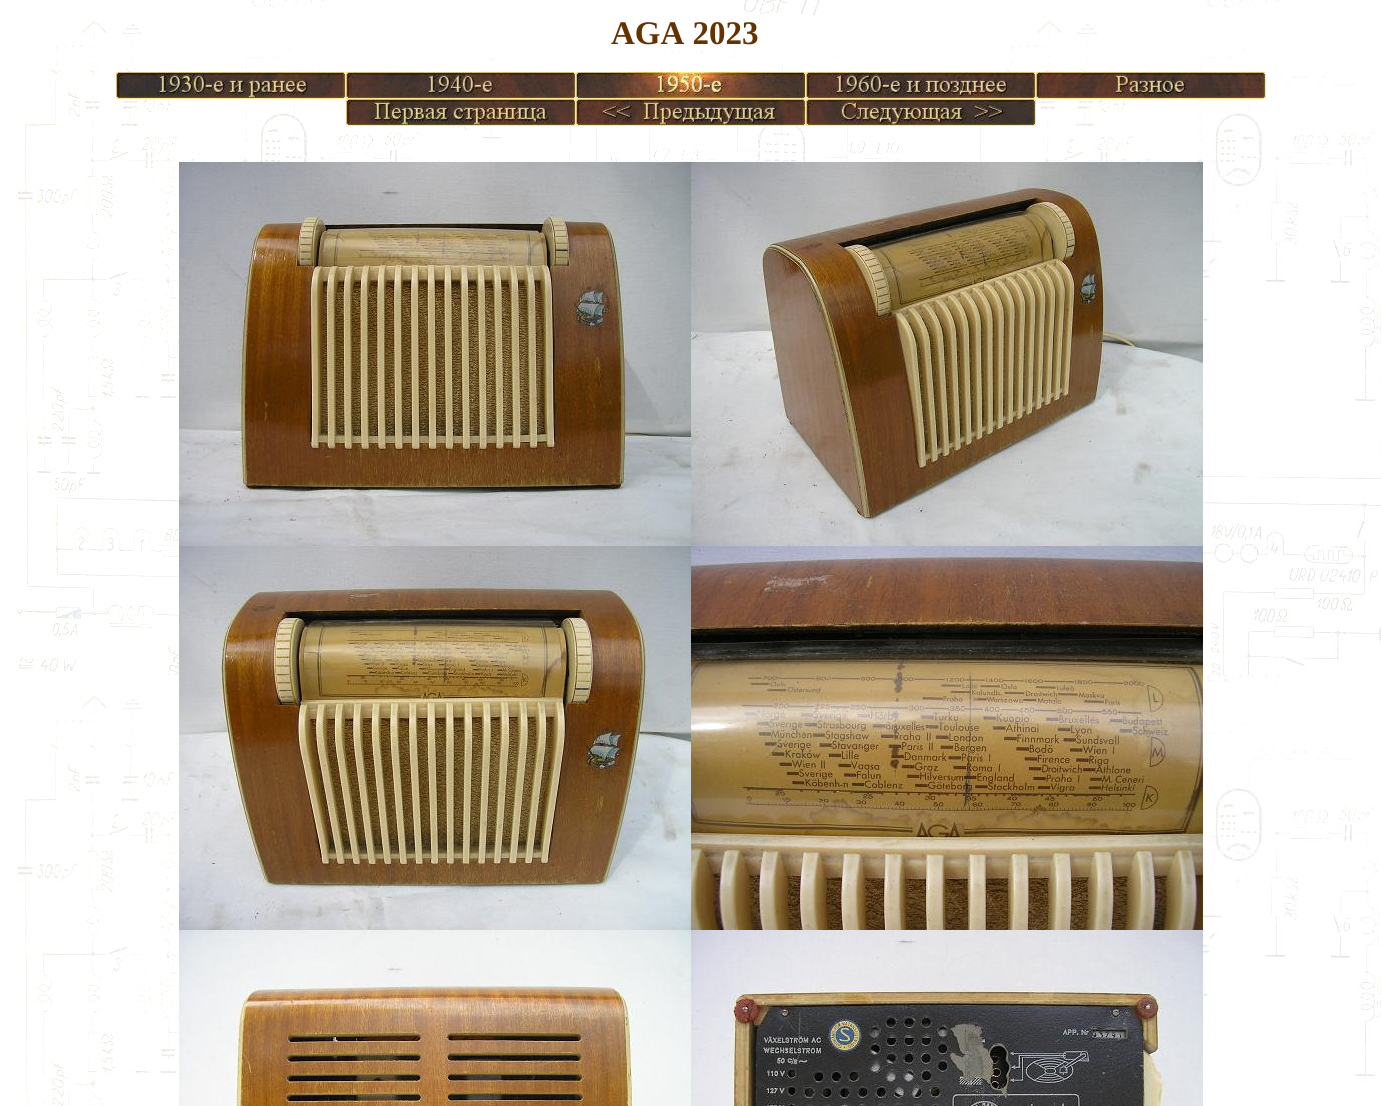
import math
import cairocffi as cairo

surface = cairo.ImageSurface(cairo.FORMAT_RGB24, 1381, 1106)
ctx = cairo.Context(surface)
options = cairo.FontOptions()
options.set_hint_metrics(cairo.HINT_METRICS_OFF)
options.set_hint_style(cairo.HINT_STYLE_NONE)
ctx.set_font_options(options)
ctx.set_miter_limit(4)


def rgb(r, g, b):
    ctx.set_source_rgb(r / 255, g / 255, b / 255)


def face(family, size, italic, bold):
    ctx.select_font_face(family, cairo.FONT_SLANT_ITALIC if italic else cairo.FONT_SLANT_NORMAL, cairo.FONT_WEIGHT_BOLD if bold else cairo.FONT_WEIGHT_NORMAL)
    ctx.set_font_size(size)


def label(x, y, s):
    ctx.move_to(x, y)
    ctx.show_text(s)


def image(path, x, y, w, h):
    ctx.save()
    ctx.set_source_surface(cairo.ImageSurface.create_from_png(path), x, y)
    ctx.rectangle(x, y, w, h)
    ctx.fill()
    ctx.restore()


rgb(255, 255, 255)
ctx.paint()
image('image0.png', 16, 0, 1365, 1106)
face('Liberation Serif', 33, 0, 1)
rgb(102, 51, 0)
label(611, 44, 'AGA 2023')
image('image1.png', 116, 72, 230, 27)
image('image2.png', 346, 72, 230, 27)
image('image3.png', 576, 72, 230, 27)
image('image4.png', 806, 72, 230, 27)
image('image5.png', 1036, 72, 230, 27)
image('image6.png', 346, 99, 230, 27)
image('image7.png', 576, 99, 230, 27)
image('image8.png', 806, 99, 230, 27)
image('image9.png', 179, 162, 512, 384)
image('image10.png', 691, 162, 512, 384)
image('image11.png', 179, 546, 512, 384)
image('image12.png', 691, 546, 512, 384)
image('image13.png', 179, 930, 512, 176)
image('image14.png', 691, 930, 512, 176)
surface.write_to_png('render.png')
